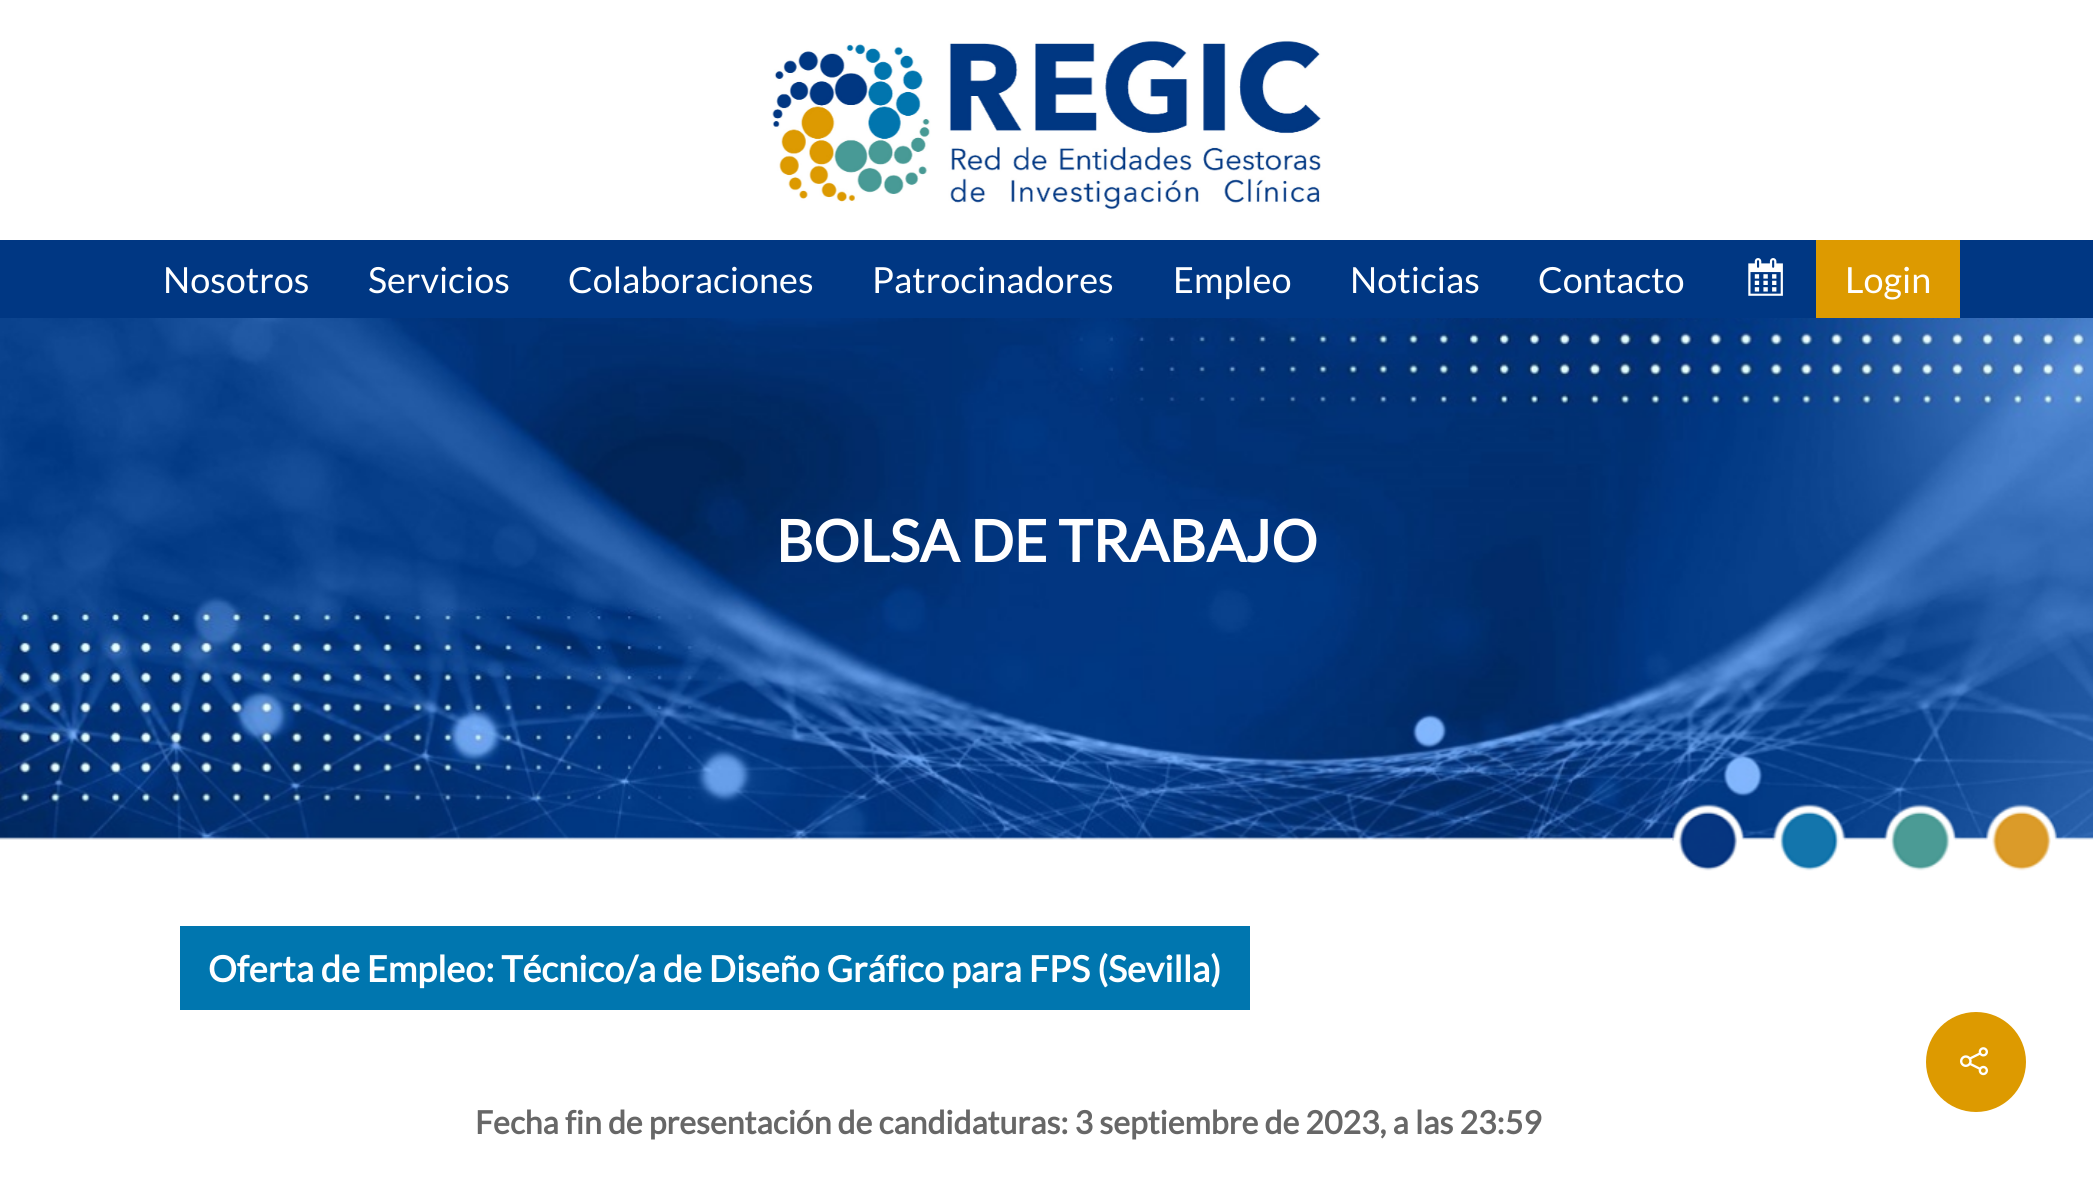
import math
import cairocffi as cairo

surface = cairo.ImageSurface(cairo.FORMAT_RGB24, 2093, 1180)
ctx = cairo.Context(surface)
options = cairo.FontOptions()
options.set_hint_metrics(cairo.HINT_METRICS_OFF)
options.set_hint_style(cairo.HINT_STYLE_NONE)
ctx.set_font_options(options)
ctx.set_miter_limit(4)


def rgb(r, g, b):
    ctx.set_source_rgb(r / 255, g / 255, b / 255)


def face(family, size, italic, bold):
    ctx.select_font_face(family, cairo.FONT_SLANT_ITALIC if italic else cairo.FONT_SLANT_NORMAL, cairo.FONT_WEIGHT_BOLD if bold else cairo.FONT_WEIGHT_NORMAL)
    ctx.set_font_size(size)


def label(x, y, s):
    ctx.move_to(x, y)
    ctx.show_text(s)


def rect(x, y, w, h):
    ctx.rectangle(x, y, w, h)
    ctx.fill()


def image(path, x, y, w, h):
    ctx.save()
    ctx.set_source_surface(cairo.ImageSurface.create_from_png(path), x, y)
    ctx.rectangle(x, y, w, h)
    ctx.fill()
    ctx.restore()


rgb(255, 255, 255)
ctx.paint()
image('image0.png', 772, 40, 549, 170)
rgb(0, 55, 131)
rect(0, 240, 2093, 78)
face('Lato', 36, 0, 0)
rgb(255, 255, 255)
label(163, 293, 'Nosotros')
label(368, 293, 'Servicios')
label(568, 293, 'Colaboraciones')
label(872, 293, 'Patrocinadores')
label(1173, 293, 'Empleo')
label(1350, 293, 'Noticias')
label(1538, 293, 'Contacto')
image('image1.png', 1748, 258, 35, 38)
rgb(221, 154, 0)
rect(1816, 240, 144, 78)
rgb(255, 255, 255)
label(1845, 293, 'Login')
image('image2.png', 0, 318, 2093, 553)
face('Lato', 57.75, 0, 1)
label(776, 562, 'BOLSA DE TRABAJO')
rgb(0, 118, 175)
rect(180, 926, 1070, 84)
face('Lato', 36, 0, 1)
rgb(255, 255, 255)
label(208, 982, 'Oferta de Empleo: Técnico/a de Diseño Gráfico para FPS (Sevilla)')
face('Lato', 32, 0, 1)
rgb(103, 103, 103)
label(475, 1134, 'Fecha fin de presentación de candidaturas: 3 septiembre de 2023, a las 23:59')
rgb(221, 154, 0)
ctx.new_path()
ctx.arc(1976, 1062, 50, 0, 2 * math.pi)
ctx.fill()
image('image3.png', 1960, 1047, 28, 29)
surface.write_to_png('render.png')
